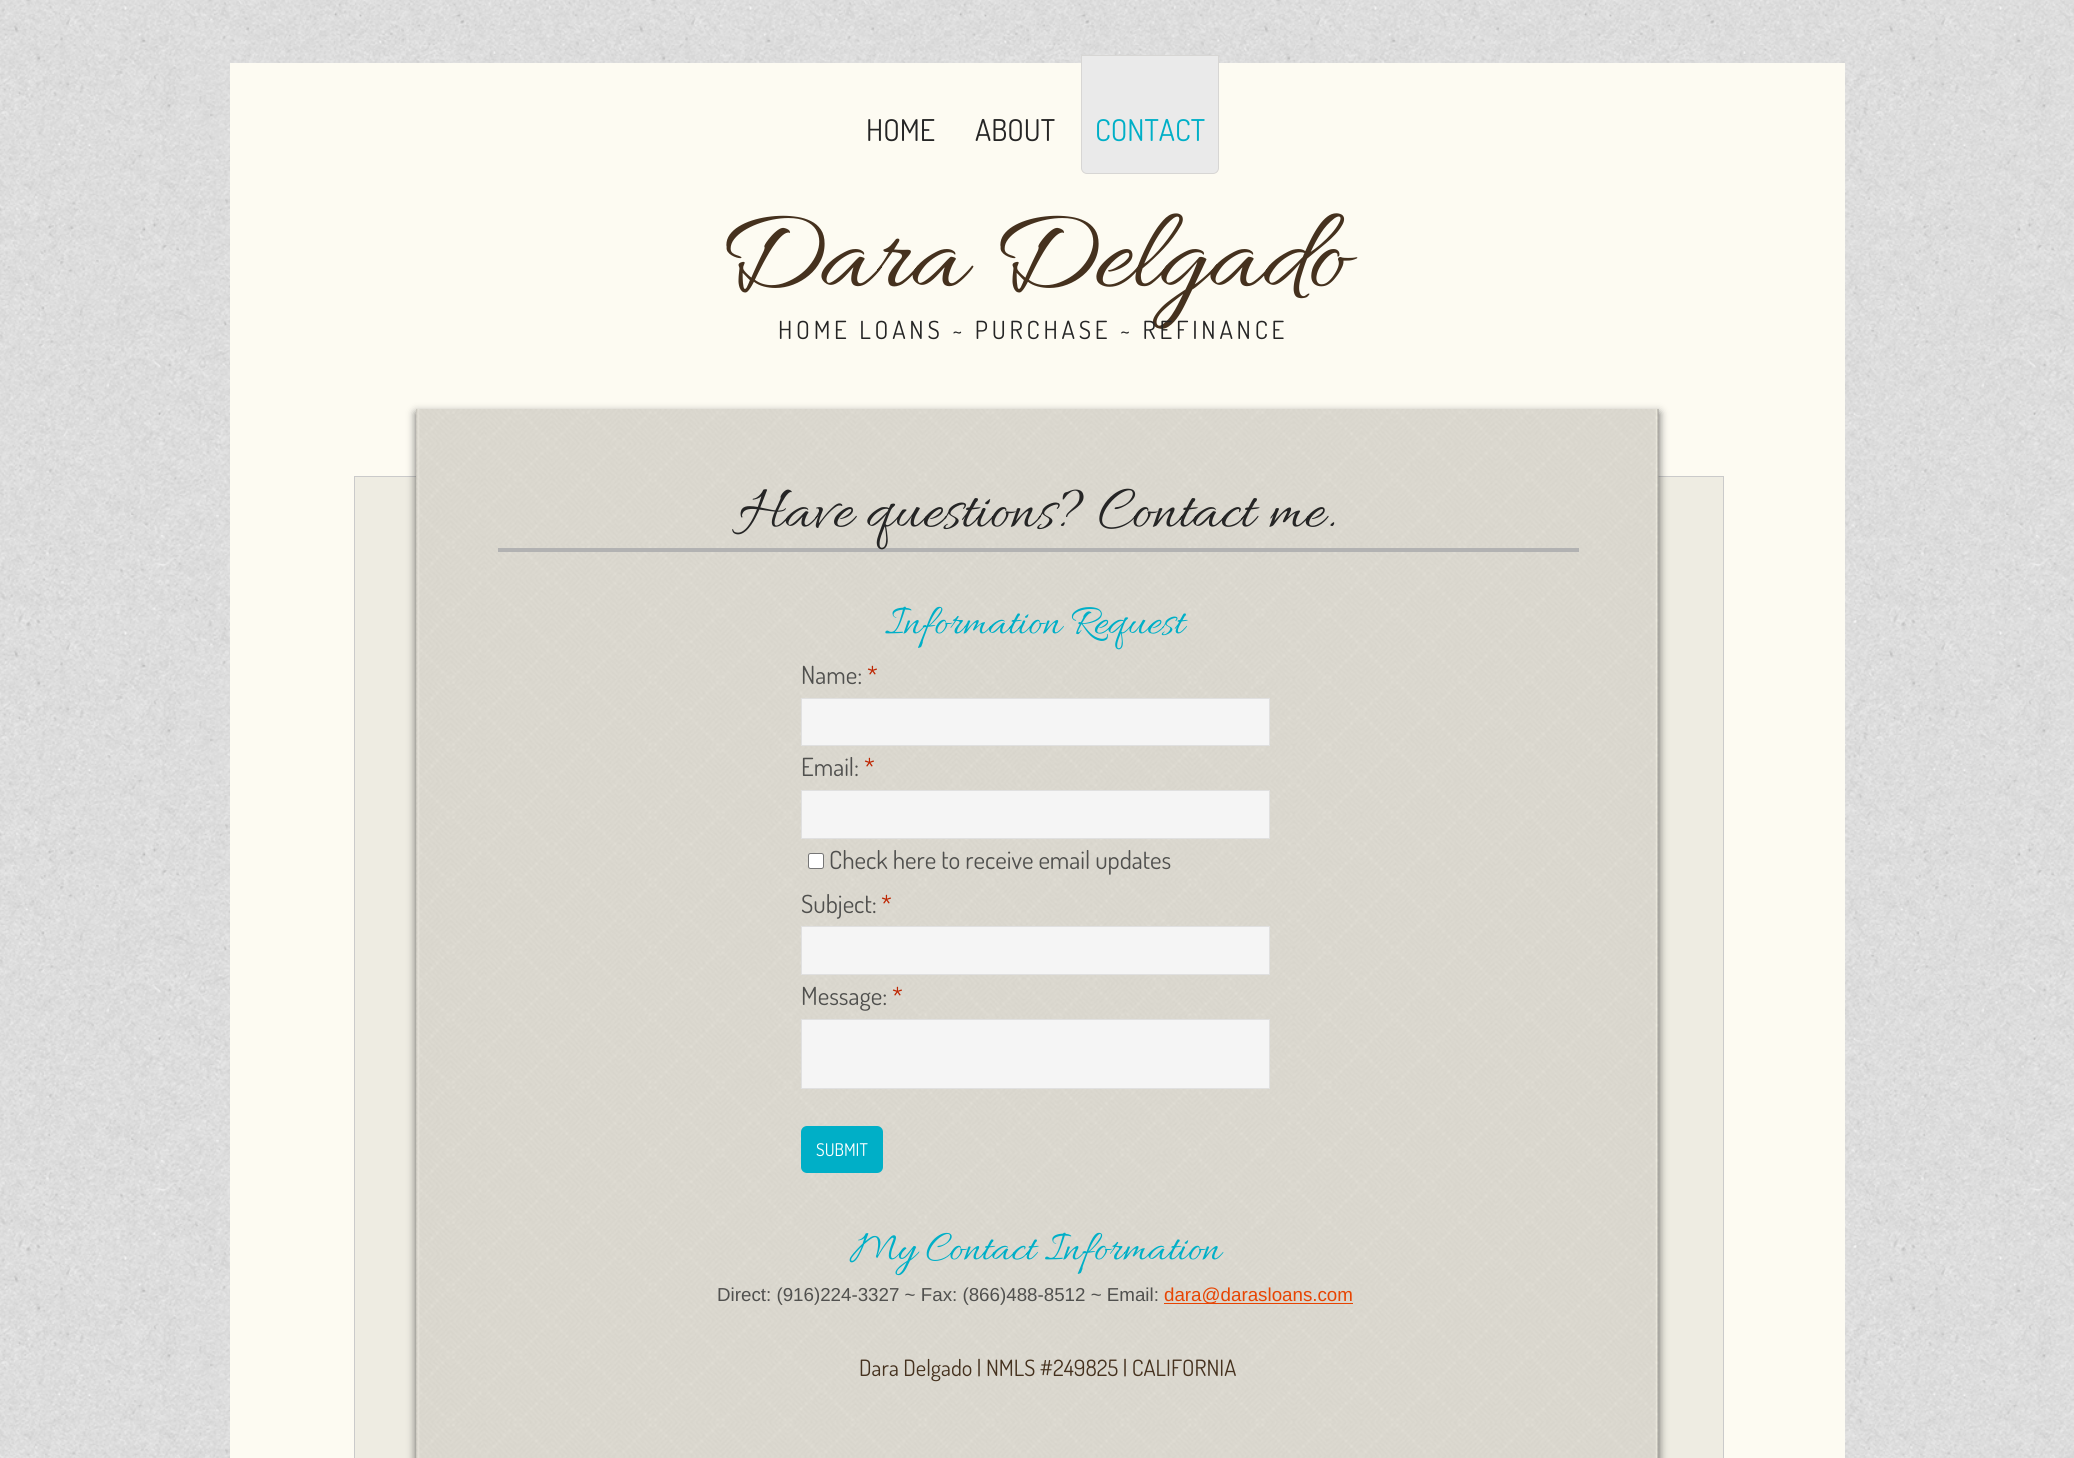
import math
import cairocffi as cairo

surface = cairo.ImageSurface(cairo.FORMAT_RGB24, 2074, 1458)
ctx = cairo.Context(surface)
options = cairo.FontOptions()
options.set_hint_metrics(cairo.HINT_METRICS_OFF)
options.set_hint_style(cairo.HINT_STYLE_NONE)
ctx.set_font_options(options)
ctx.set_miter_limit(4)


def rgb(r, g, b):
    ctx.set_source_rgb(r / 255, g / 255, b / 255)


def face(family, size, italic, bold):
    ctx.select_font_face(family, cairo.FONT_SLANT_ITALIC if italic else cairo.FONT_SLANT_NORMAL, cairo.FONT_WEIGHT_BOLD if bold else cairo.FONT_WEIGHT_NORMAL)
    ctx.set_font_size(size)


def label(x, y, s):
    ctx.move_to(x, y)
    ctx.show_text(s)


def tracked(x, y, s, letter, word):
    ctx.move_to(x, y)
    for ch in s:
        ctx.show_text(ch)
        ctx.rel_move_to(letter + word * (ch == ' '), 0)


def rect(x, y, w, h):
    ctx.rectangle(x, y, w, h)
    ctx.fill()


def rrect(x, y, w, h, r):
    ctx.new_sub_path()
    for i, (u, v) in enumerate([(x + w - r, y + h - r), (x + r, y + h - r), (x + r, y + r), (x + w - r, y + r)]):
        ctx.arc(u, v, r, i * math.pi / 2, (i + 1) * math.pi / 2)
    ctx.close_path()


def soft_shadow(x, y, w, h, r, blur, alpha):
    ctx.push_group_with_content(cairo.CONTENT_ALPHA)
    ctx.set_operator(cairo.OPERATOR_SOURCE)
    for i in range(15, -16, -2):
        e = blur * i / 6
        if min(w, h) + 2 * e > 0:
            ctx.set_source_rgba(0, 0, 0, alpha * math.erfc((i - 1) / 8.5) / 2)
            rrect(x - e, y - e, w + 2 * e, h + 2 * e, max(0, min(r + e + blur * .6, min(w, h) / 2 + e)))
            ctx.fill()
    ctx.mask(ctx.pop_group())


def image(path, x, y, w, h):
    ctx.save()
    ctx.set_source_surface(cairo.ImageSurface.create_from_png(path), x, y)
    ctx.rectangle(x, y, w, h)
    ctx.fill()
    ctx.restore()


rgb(255, 255, 255)
ctx.paint()
image('image0.png', 0, 0, 2074, 1458)
rgb(253, 251, 242)
rect(230, 63, 1615, 1395)
face('Dosis', 30, 0, 0)
rgb(37, 37, 37)
label(866, 141, 'HOME')
label(975, 141, 'ABOUT')
rgb(234, 234, 234)
ctx.new_path()
ctx.move_to(1081.5, 55.5)
ctx.line_to(1218.5, 55.5)
ctx.line_to(1218.5, 168)
ctx.curve_to(1218.5, 171, 1216, 173.5, 1213, 173.5)
ctx.line_to(1087, 173.5)
ctx.curve_to(1084, 173.5, 1081.5, 171, 1081.5, 168)
ctx.close_path()
ctx.fill_preserve()
rgb(215, 214, 212)
ctx.set_line_width(1)
ctx.stroke()
rgb(0, 175, 199)
label(1095, 141, 'CONTACT')
face('Allura', 118.75, 0, 0)
rgb(69, 49, 30)
label(717, 285, 'Dara Delgado')
face('Dosis', 25, 0, 0)
rgb(37, 37, 37)
tracked(778, 339, 'HOME LOANS ~ PURCHASE ~ REFINANCE', 3.75, 0)
rgb(238, 236, 226)
ctx.rectangle(354.5, 476.5, 1369, 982)
ctx.fill_preserve()
rgb(202, 202, 202)
ctx.stroke()
rgb(50, 50, 50)
soft_shadow(416, 413, 1243, 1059, 0, 4.5, 0.75)
image('image1.png', 416, 409, 1243, 1049)
rgb(178, 178, 178)
rect(498, 548, 1081, 4)
face('Allura', 62.5, 0, 0)
rgb(37, 37, 37)
label(738, 526, 'Have questions? Contact me.')
face('Allura', 43.75, 0, 0)
rgb(0, 175, 199)
label(885, 633, 'Information Request')
face('Dosis', 25, 0, 0)
rgb(80, 80, 78)
label(801, 684, 'Name:')
rgb(190, 38, 2)
label(867, 684, '*')
rgb(245, 245, 245)
ctx.rectangle(801.5, 698.5, 468, 47)
ctx.fill_preserve()
rgb(224, 224, 224)
ctx.stroke()
rgb(80, 80, 78)
label(801, 776, 'Email:')
rgb(190, 38, 2)
label(864, 776, '*')
rgb(245, 245, 245)
ctx.rectangle(801.5, 790.5, 468, 48)
ctx.fill_preserve()
rgb(224, 224, 224)
ctx.stroke()
rgb(255, 255, 255)
rrect(808.5, 853.5, 15, 15, 2)
ctx.fill_preserve()
rgb(118, 118, 118)
ctx.stroke()
rgb(80, 80, 78)
label(829, 869, 'Check here to receive email updates')
label(801, 913, 'Subject:')
rgb(190, 38, 2)
label(881, 913, '*')
rgb(245, 245, 245)
ctx.rectangle(801.5, 926.5, 468, 48)
ctx.fill_preserve()
rgb(224, 224, 224)
ctx.stroke()
rgb(80, 80, 78)
label(801, 1005, 'Message:')
rgb(190, 38, 2)
label(892, 1005, '*')
rgb(245, 245, 245)
ctx.rectangle(801.5, 1019.5, 468, 69)
ctx.fill_preserve()
rgb(224, 224, 224)
ctx.stroke()
rgb(0, 175, 199)
rrect(801, 1126, 82, 47, 6)
ctx.fill()
face('Dosis', 17.5, 0, 0)
rgb(255, 255, 255)
label(816, 1156, 'SUBMIT')
face('Allura', 43.75, 0, 0)
rgb(0, 175, 199)
label(850, 1259, 'My Contact Information')
face('Liberation Sans', 18.75, 0, 0)
rgb(80, 80, 78)
label(717, 1301, 'Direct: (916)224-3327 ~ Fax: (866)488-8512 ~ Email:')
rgb(231, 68, 2)
rect(1164, 1303, 189, 1)
label(1164, 1301, 'dara@darasloans.com')
face('Dosis', 22.5, 0, 0)
rgb(69, 49, 30)
label(859, 1376, 'Dara Delgado | NMLS #249825 | CALIFORNIA')
surface.write_to_png('render.png')
